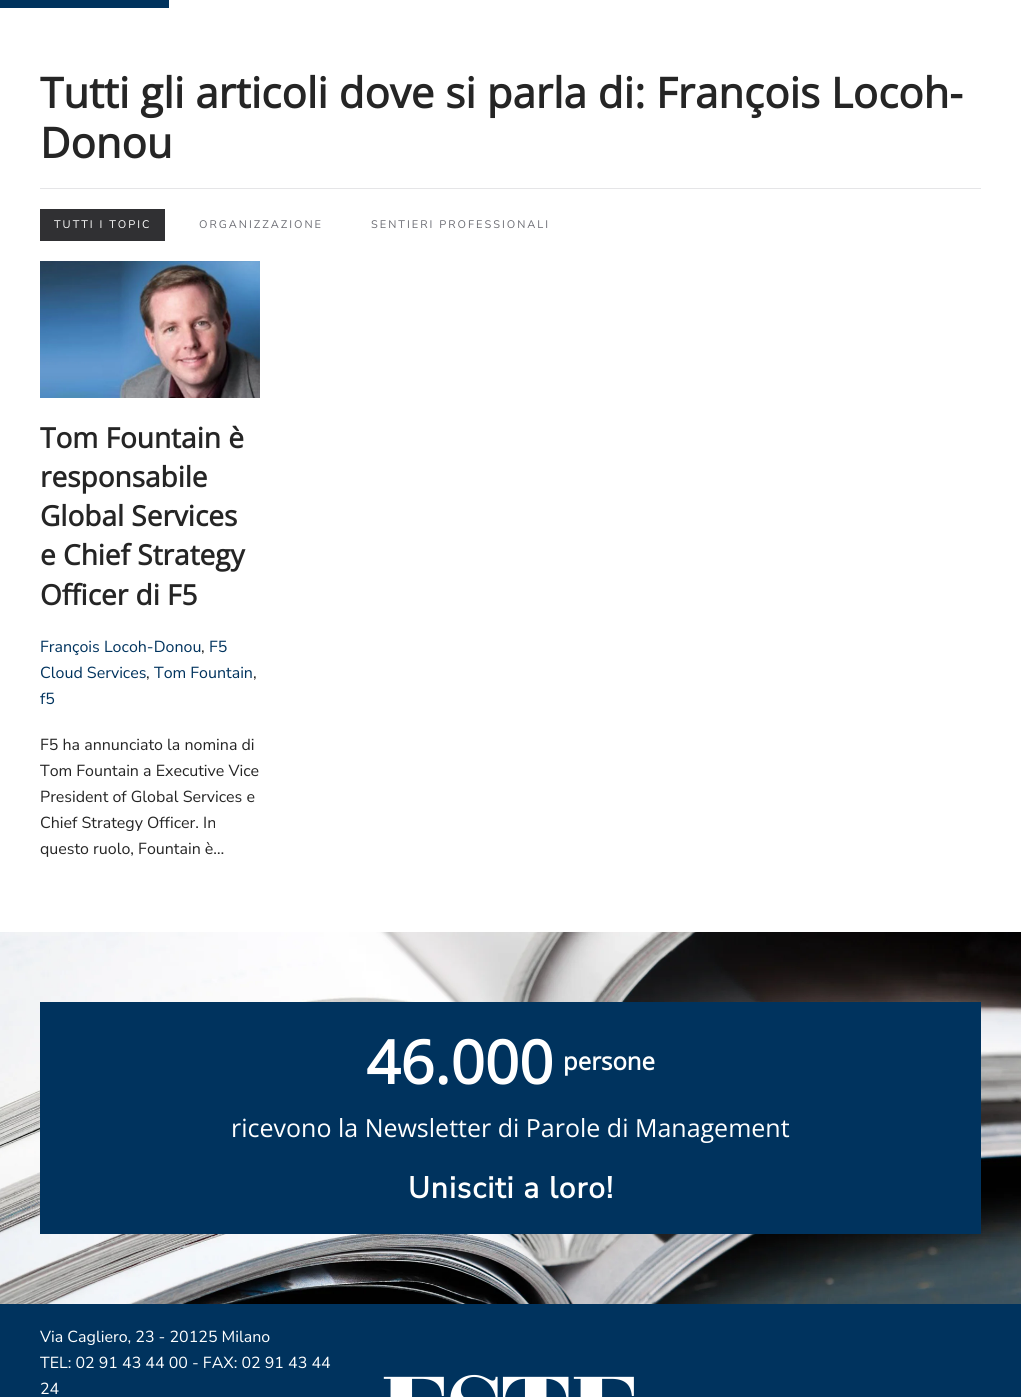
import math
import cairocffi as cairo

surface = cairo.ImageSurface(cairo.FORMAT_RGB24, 1021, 1397)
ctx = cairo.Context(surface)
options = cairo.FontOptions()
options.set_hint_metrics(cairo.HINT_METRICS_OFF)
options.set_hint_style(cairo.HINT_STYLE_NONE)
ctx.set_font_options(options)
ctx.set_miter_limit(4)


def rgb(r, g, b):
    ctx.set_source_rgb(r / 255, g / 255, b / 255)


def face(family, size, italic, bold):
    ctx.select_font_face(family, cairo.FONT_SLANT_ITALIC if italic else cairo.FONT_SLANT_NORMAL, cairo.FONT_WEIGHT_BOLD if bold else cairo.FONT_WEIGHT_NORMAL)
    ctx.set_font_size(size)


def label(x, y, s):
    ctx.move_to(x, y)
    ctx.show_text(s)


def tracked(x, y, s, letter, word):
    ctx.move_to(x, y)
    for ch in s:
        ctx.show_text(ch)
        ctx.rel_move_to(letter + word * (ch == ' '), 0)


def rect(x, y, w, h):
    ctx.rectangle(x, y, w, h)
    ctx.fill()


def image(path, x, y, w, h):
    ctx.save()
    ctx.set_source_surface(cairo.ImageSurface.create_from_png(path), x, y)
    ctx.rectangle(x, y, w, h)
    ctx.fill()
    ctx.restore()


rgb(255, 255, 255)
ctx.paint()
face('Open Sans', 42, 0, 1)
rgb(37, 37, 37)
label(40, 108, 'Tutti gli articoli dove si parla di: François Locoh-')
label(40, 158, 'Donou')
rgb(229, 229, 231)
rect(40, 188, 941, 1)
rgb(48, 48, 51)
rect(40, 209, 125, 32)
face('Nunito Sans ExtraLight', 11, 0, 0)
rgb(255, 255, 255)
tracked(54, 228, 'TUTTI I TOPIC', 2, 0)
rgb(108, 109, 116)
tracked(199, 228, 'ORGANIZZAZIONE', 2, 0)
tracked(371, 228, 'SENTIERI PROFESSIONALI', 2, 0)
image('image0.png', 40, 261, 220, 137)
face('Open Sans', 28, 0, 1)
rgb(37, 37, 37)
label(40, 448, 'Tom Fountain è')
label(40, 487, 'responsabile')
label(40, 526, 'Global Services')
label(40, 565, 'e Chief Strategy')
label(40, 605, 'Officer di F5')
face('Nunito Sans ExtraLight', 16, 0, 0)
rgb(0, 51, 94)
label(40, 652, 'François Locoh-Donou')
rgb(37, 37, 37)
label(201, 652, ',')
rgb(0, 51, 94)
label(209, 652, 'F5')
label(40, 678, 'Cloud Services')
rgb(37, 37, 37)
label(146, 678, ',')
rgb(0, 51, 94)
label(154, 678, 'Tom Fountain')
rgb(37, 37, 37)
label(253, 678, ',')
rgb(0, 51, 94)
label(40, 704, 'f5')
rgb(37, 37, 37)
label(40, 750, 'F5 ha annunciato la nomina di')
label(40, 776, 'Tom Fountain a Executive Vice')
label(40, 802, 'President of Global Services e')
label(40, 828, 'Chief Strategy Officer. In')
label(40, 854, 'questo ruolo, Fountain è…')
image('image1.png', 0, 932, 1021, 372)
rgb(0, 51, 94)
rect(40, 1002, 941, 232)
face('Open Sans', 60, 0, 1)
rgb(255, 255, 255)
label(366, 1084, '46.000')
face('Open Sans', 24, 0, 1)
label(563, 1070, 'persone')
face('Open Sans', 25, 0, 0)
label(231, 1137, 'ricevono la Newsletter di Parole di Management')
face('Nunito Sans', 30, 0, 1)
tracked(408, 1198, 'Unisciti a loro!', 1, 0)
rgb(0, 51, 94)
rect(0, 0, 169, 8)
rect(0, 1304, 1021, 93)
face('Nunito Sans ExtraLight', 16, 0, 0)
rgb(255, 255, 255)
label(40, 1342, 'Via Cagliero, 23 - 20125 Milano')
label(40, 1368, 'TEL: 02 91 43 44 00 - FAX: 02 91 43 44')
label(40, 1394, '24')
image('image2.png', 383, 1374, 251, 23)
surface.write_to_png('render.png')
